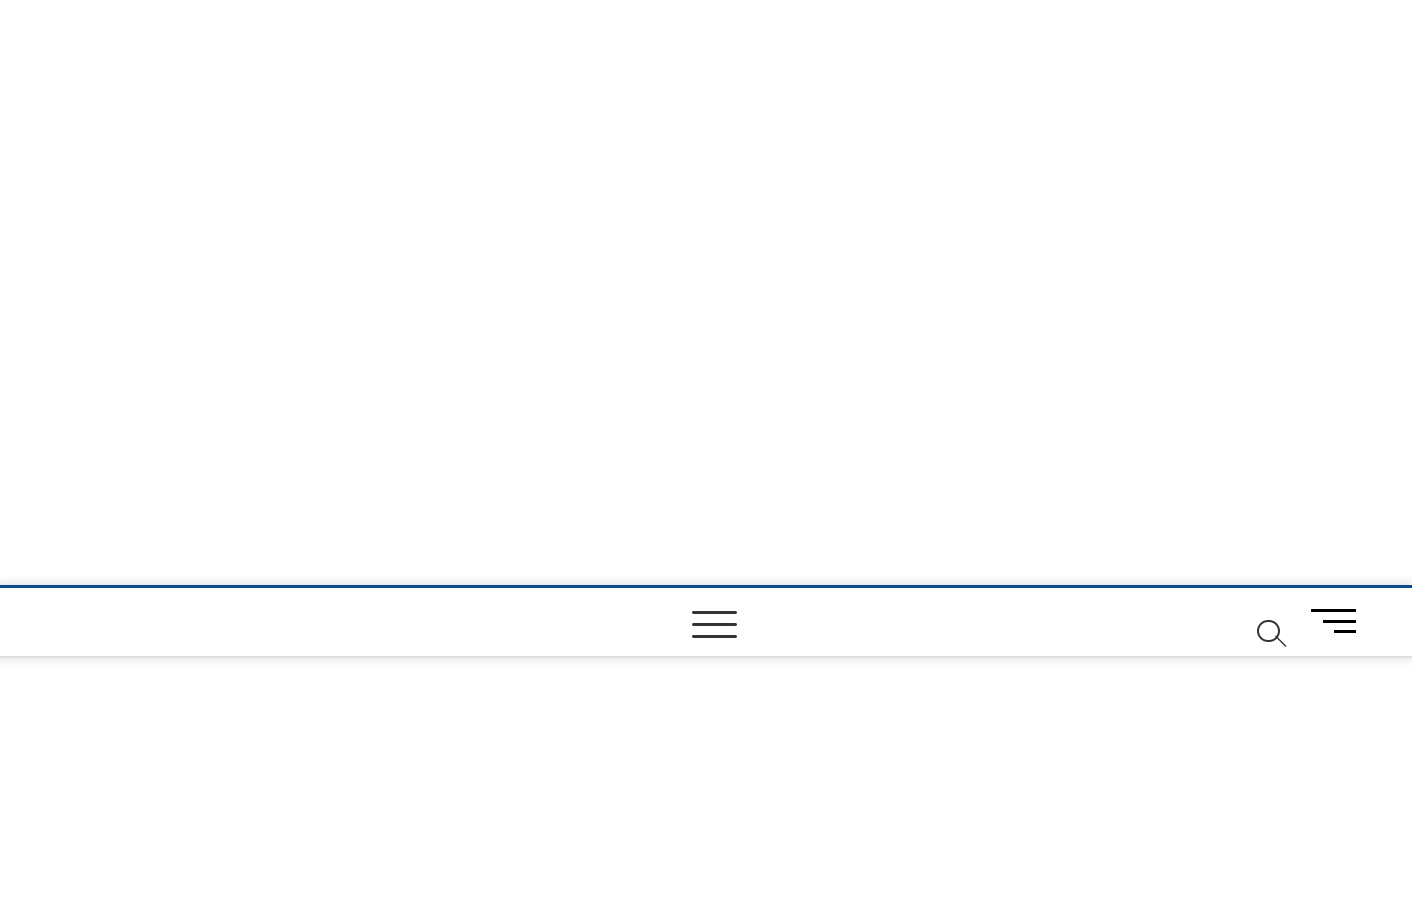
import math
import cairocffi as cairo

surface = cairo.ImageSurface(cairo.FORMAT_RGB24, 1412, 924)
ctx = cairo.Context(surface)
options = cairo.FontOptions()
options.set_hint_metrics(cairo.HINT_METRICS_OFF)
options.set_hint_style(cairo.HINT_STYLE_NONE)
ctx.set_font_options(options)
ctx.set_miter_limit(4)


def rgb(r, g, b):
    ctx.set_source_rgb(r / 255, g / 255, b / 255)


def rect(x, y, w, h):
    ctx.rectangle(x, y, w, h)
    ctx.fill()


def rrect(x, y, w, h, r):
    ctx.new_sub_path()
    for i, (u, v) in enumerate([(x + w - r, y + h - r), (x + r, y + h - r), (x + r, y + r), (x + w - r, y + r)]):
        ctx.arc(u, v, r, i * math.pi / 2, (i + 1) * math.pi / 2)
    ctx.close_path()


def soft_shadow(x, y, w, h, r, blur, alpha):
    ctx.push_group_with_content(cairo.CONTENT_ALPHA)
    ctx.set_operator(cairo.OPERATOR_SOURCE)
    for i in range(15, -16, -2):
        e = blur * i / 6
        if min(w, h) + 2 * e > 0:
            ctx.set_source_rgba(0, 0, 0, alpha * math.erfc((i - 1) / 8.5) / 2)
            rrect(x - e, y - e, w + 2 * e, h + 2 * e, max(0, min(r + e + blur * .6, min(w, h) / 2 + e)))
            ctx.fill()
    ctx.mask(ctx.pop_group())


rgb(255, 255, 255)
ctx.paint()
ctx.save()
ctx.set_fill_rule(cairo.FILL_RULE_EVEN_ODD)
ctx.new_path()
ctx.move_to(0, 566)
ctx.line_to(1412, 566)
ctx.line_to(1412, 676)
ctx.line_to(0, 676)
ctx.close_path()
ctx.move_to(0, 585)
ctx.line_to(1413, 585)
ctx.line_to(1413, 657)
ctx.line_to(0, 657)
ctx.close_path()
ctx.clip()
rgb(0, 0, 0)
soft_shadow(0, 585, 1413, 72, 0, 6, 0.15)
ctx.restore()
rgb(12, 76, 138)
rect(0, 585, 1412, 3)
rgb(221, 221, 221)
rect(0, 656, 1412, 2)
rgb(51, 51, 51)
rrect(692, 623, 45, 3, 1.5)
ctx.fill()
rrect(692, 611, 45, 3, 1.5)
ctx.fill()
rrect(692, 635, 45, 3, 1.5)
ctx.fill()
rrect(1258, 621, 21, 20, 10)
ctx.stroke()
ctx.new_path()
ctx.move_to(1275, 636.5)
ctx.line_to(1276, 635.5)
ctx.line_to(1286.5, 646)
ctx.line_to(1285.5, 647)
ctx.close_path()
ctx.fill()
rgb(0, 0, 0)
rect(1323, 620, 33, 3)
rect(1311, 609, 45, 3)
rect(1334, 630, 22, 3)
surface.write_to_png('render.png')
